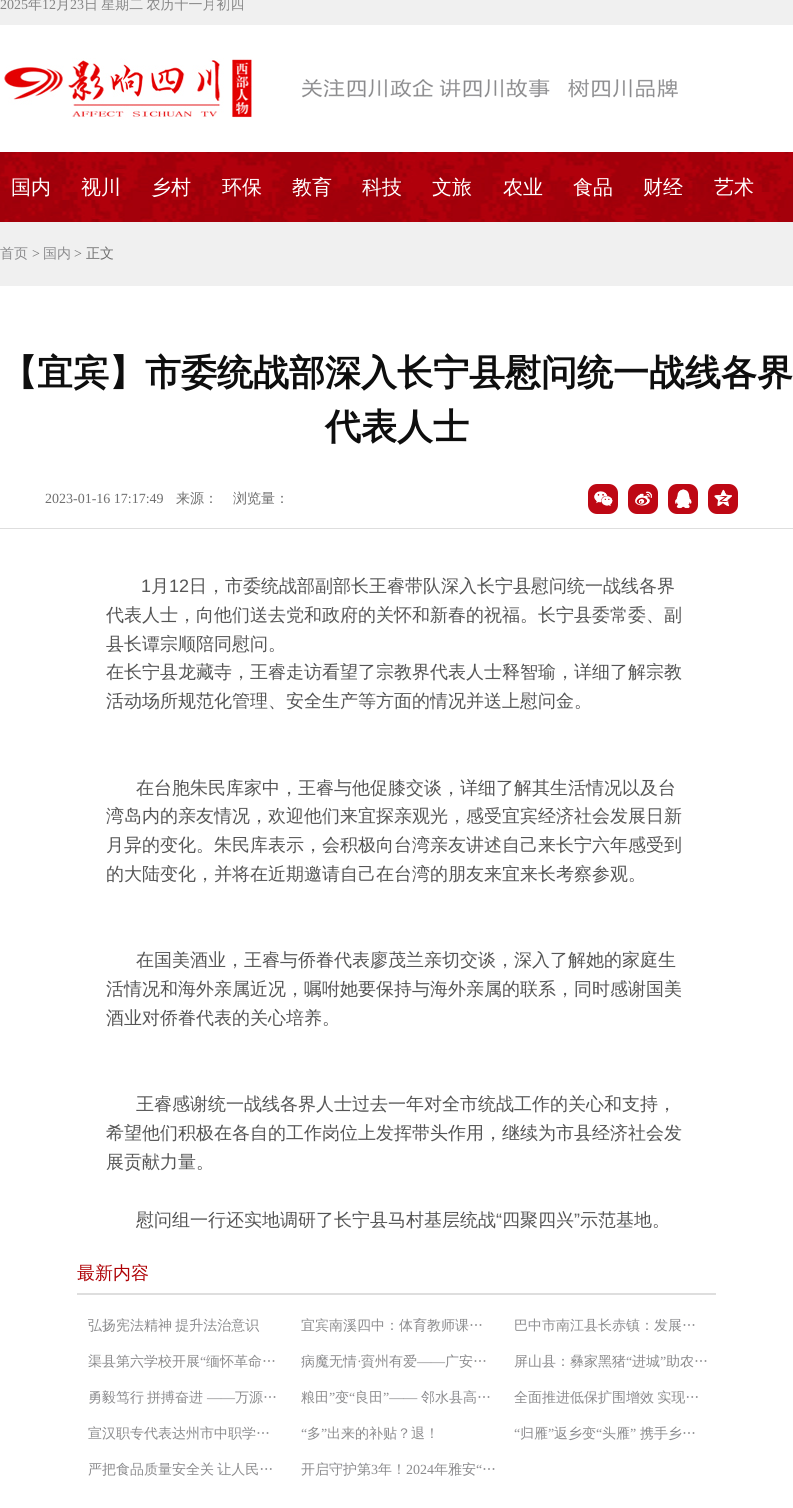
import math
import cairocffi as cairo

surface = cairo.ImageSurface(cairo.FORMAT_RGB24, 793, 1508)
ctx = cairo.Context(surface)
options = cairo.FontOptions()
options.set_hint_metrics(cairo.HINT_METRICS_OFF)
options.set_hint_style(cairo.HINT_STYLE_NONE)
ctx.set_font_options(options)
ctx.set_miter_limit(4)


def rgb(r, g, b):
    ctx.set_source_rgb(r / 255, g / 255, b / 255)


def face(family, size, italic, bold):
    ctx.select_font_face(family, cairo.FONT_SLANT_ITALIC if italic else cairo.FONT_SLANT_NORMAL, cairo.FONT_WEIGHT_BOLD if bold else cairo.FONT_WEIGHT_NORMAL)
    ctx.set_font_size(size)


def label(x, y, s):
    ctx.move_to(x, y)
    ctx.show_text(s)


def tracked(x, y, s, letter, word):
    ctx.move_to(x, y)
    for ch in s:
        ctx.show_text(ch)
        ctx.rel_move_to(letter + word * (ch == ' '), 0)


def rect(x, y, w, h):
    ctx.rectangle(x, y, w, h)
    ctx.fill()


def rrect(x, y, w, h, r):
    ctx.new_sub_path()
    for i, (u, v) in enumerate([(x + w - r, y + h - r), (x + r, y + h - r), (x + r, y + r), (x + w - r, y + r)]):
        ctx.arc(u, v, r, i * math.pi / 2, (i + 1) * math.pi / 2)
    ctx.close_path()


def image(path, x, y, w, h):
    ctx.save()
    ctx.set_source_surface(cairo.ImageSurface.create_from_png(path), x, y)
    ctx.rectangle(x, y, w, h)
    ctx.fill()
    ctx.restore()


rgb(240, 240, 240)
ctx.paint()
face('Liberation Serif', 14, 0, 0)
rgb(133, 133, 133)
label(0, 9, '2025')
face('WenQuanYi Zen Hei Medium', 14, 0, 0)
label(28, 9, '年')
face('Liberation Serif', 14, 0, 0)
label(42, 9, '12')
face('WenQuanYi Zen Hei Medium', 14, 0, 0)
label(56, 9, '月')
face('Liberation Serif', 14, 0, 0)
label(70, 9, '23')
face('WenQuanYi Zen Hei Medium', 14, 0, 0)
tracked(84, 9, '日 星期二 农历十一月初四', 0, -1)
rgb(255, 255, 255)
rect(0, 25, 793, 127)
image('image0.png', 302, 79, 376, 19)
image('image1.png', 4, 58, 249, 62)
image('image2.png', 0, 152, 793, 70)
face('WenQuanYi Zen Hei Medium', 20, 0, 0)
label(11, 194, '国内')
label(81, 194, '视川')
label(151, 194, '乡村')
label(222, 194, '环保')
label(292, 194, '教育')
label(362, 194, '科技')
label(432, 194, '文旅')
label(503, 194, '农业')
label(573, 194, '食品')
label(643, 194, '财经')
label(714, 194, '艺术')
face('WenQuanYi Zen Hei Medium', 14, 0, 0)
rgb(139, 139, 141)
label(0, 258, '首页')
face('Liberation Serif', 14, 0, 0)
rgb(111, 111, 111)
label(32, 258, '>')
face('WenQuanYi Zen Hei Medium', 14, 0, 0)
rgb(139, 139, 141)
label(43, 258, '国内')
face('Liberation Serif', 14, 0, 0)
rgb(111, 111, 111)
label(74, 258, '>')
face('WenQuanYi Zen Hei Medium', 14, 0, 0)
label(86, 258, '正文')
rgb(255, 255, 255)
rect(0, 286, 793, 1222)
face('WenQuanYi Zen Hei', 36, 0, 1)
rgb(14, 14, 14)
label(1, 385, '【宜宾】市委统战部深入长宁县慰问统一战线各界')
label(325, 439, '代表人士')
rgb(222, 222, 222)
rect(0, 528, 793, 1)
face('Liberation Serif', 14, 0, 0)
rgb(111, 111, 111)
label(45, 503, '2023-01-16 17:17:49')
face('WenQuanYi Zen Hei Medium', 14, 0, 0)
label(176, 503, '来源：')
label(233, 503, '浏览量：')
rgb(190, 8, 20)
rrect(588, 484, 30, 30, 9)
ctx.fill()
image('image3.png', 594, 491, 19, 15)
rrect(628, 484, 30, 30, 9)
ctx.fill()
image('image4.png', 635, 491, 17, 15)
rrect(668, 484, 30, 30, 9)
ctx.fill()
image('image5.png', 675, 489, 17, 20)
rrect(708, 484, 30, 30, 9)
ctx.fill()
image('image6.png', 714, 489, 18, 18)
face('Liberation Sans', 18, 0, 0)
rgb(85, 85, 85)
label(141, 592, '1')
face('WenQuanYi Zen Hei Medium', 18, 0, 0)
label(151, 592, '月')
face('Liberation Sans', 18, 0, 0)
label(169, 592, '12')
face('WenQuanYi Zen Hei Medium', 18, 0, 0)
label(189, 592, '日，市委统战部副部长王睿带队深入长宁县慰问统一战线各界')
label(106, 621, '代表人士，向他们送去党和政府的关怀和新春的祝福。长宁县委常委、副')
label(106, 650, '县长谭宗顺陪同慰问。')
label(106, 678, '在长宁县龙藏寺，王睿走访看望了宗教界代表人士释智瑜，详细了解宗教')
label(106, 707, '活动场所规范化管理、安全生产等方面的情况并送上慰问金。')
label(136, 794, '在台胞朱民库家中，王睿与他促膝交谈，详细了解其生活情况以及台')
label(106, 822, '湾岛内的亲友情况，欢迎他们来宜探亲观光，感受宜宾经济社会发展日新')
label(106, 851, '月异的变化。朱民库表示，会积极向台湾亲友讲述自己来长宁六年感受到')
label(106, 880, '的大陆变化，并将在近期邀请自己在台湾的朋友来宜来长考察参观。')
label(136, 966, '在国美酒业，王睿与侨眷代表廖茂兰亲切交谈，深入了解她的家庭生')
label(106, 995, '活情况和海外亲属近况，嘱咐她要保持与海外亲属的联系，同时感谢国美')
label(106, 1024, '酒业对侨眷代表的关心培养。')
label(136, 1110, '王睿感谢统一战线各界人士过去一年对全市统战工作的关心和支持，')
label(106, 1139, '希望他们积极在各自的工作岗位上发挥带头作用，继续为市县经济社会发')
label(106, 1168, '展贡献力量。')
label(136, 1226, '慰问组一行还实地调研了长宁县马村基层统战')
face('Liberation Sans', 18, 0, 0)
label(496, 1226, '“')
face('WenQuanYi Zen Hei Medium', 18, 0, 0)
label(502, 1226, '四聚四兴')
face('Liberation Sans', 18, 0, 0)
label(574, 1226, '”')
face('WenQuanYi Zen Hei Medium', 18, 0, 0)
label(580, 1226, '示范基地。')
rgb(174, 1, 5)
label(77, 1279, '最新内容')
rgb(222, 222, 222)
rect(77, 1293, 639, 2)
face('WenQuanYi Zen Hei Medium', 14, 0, 0)
rgb(139, 139, 141)
tracked(88, 1330, '弘扬宪法精神 提升法治意识', 0, -1)
label(301, 1330, '宜宾南溪四中：体育教师课…')
label(514, 1330, '巴中市南江县长赤镇：发展…')
label(88, 1366, '渠县第六学校开展')
face('Liberation Serif', 14, 0, 0)
label(200, 1366, '“')
face('WenQuanYi Zen Hei Medium', 14, 0, 0)
label(206, 1366, '缅怀革命…')
label(301, 1366, '病魔无情')
face('Liberation Serif', 14, 0, 0)
label(357, 1366, '·')
face('WenQuanYi Zen Hei Medium', 14, 0, 0)
label(361, 1366, '賨州有爱')
face('Liberation Serif', 14, 0, 0)
label(417, 1366, '——')
face('WenQuanYi Zen Hei Medium', 14, 0, 0)
label(445, 1366, '广安…')
label(514, 1366, '屏山县：彝家黑猪')
face('Liberation Serif', 14, 0, 0)
label(626, 1366, '“')
face('WenQuanYi Zen Hei Medium', 14, 0, 0)
label(632, 1366, '进城')
face('Liberation Serif', 14, 0, 0)
label(660, 1366, '”')
face('WenQuanYi Zen Hei Medium', 14, 0, 0)
label(666, 1366, '助农…')
label(88, 1402, '勇毅笃行')
label(147, 1402, '拼搏奋进')
face('Liberation Serif', 14, 0, 0)
label(207, 1402, '——')
face('WenQuanYi Zen Hei Medium', 14, 0, 0)
label(235, 1402, '万源…')
label(301, 1402, '粮田')
face('Liberation Serif', 14, 0, 0)
label(329, 1402, '”')
face('WenQuanYi Zen Hei Medium', 14, 0, 0)
label(335, 1402, '变')
face('Liberation Serif', 14, 0, 0)
label(349, 1402, '“')
face('WenQuanYi Zen Hei Medium', 14, 0, 0)
label(355, 1402, '良田')
face('Liberation Serif', 14, 0, 0)
label(383, 1402, '”——')
face('WenQuanYi Zen Hei Medium', 14, 0, 0)
label(421, 1402, '邻水县高…')
tracked(514, 1402, '全面推进低保扩围增效 实现…', 0, -1)
label(88, 1438, '宣汉职专代表达州市中职学…')
face('Liberation Serif', 14, 0, 0)
label(301, 1438, '“')
face('WenQuanYi Zen Hei Medium', 14, 0, 0)
label(307, 1438, '多')
face('Liberation Serif', 14, 0, 0)
label(321, 1438, '”')
face('WenQuanYi Zen Hei Medium', 14, 0, 0)
label(327, 1438, '出来的补贴？退！')
face('Liberation Serif', 14, 0, 0)
label(514, 1438, '“')
face('WenQuanYi Zen Hei Medium', 14, 0, 0)
label(520, 1438, '归雁')
face('Liberation Serif', 14, 0, 0)
label(548, 1438, '”')
face('WenQuanYi Zen Hei Medium', 14, 0, 0)
label(554, 1438, '返乡变')
face('Liberation Serif', 14, 0, 0)
label(596, 1438, '“')
face('WenQuanYi Zen Hei Medium', 14, 0, 0)
label(602, 1438, '头雁')
face('Liberation Serif', 14, 0, 0)
label(630, 1438, '”')
face('WenQuanYi Zen Hei Medium', 14, 0, 0)
label(640, 1438, '携手乡…')
tracked(88, 1474, '严把食品质量安全关 让人民…', 0, -1)
label(301, 1474, '开启守护第')
face('Liberation Serif', 14, 0, 0)
label(371, 1474, '3')
face('WenQuanYi Zen Hei Medium', 14, 0, 0)
label(378, 1474, '年！')
face('Liberation Serif', 14, 0, 0)
label(406, 1474, '2024')
face('WenQuanYi Zen Hei Medium', 14, 0, 0)
label(434, 1474, '年雅安')
face('Liberation Serif', 14, 0, 0)
label(476, 1474, '“')
face('WenQuanYi Zen Hei Medium', 14, 0, 0)
label(482, 1474, '…')
surface.write_to_png('render.png')
